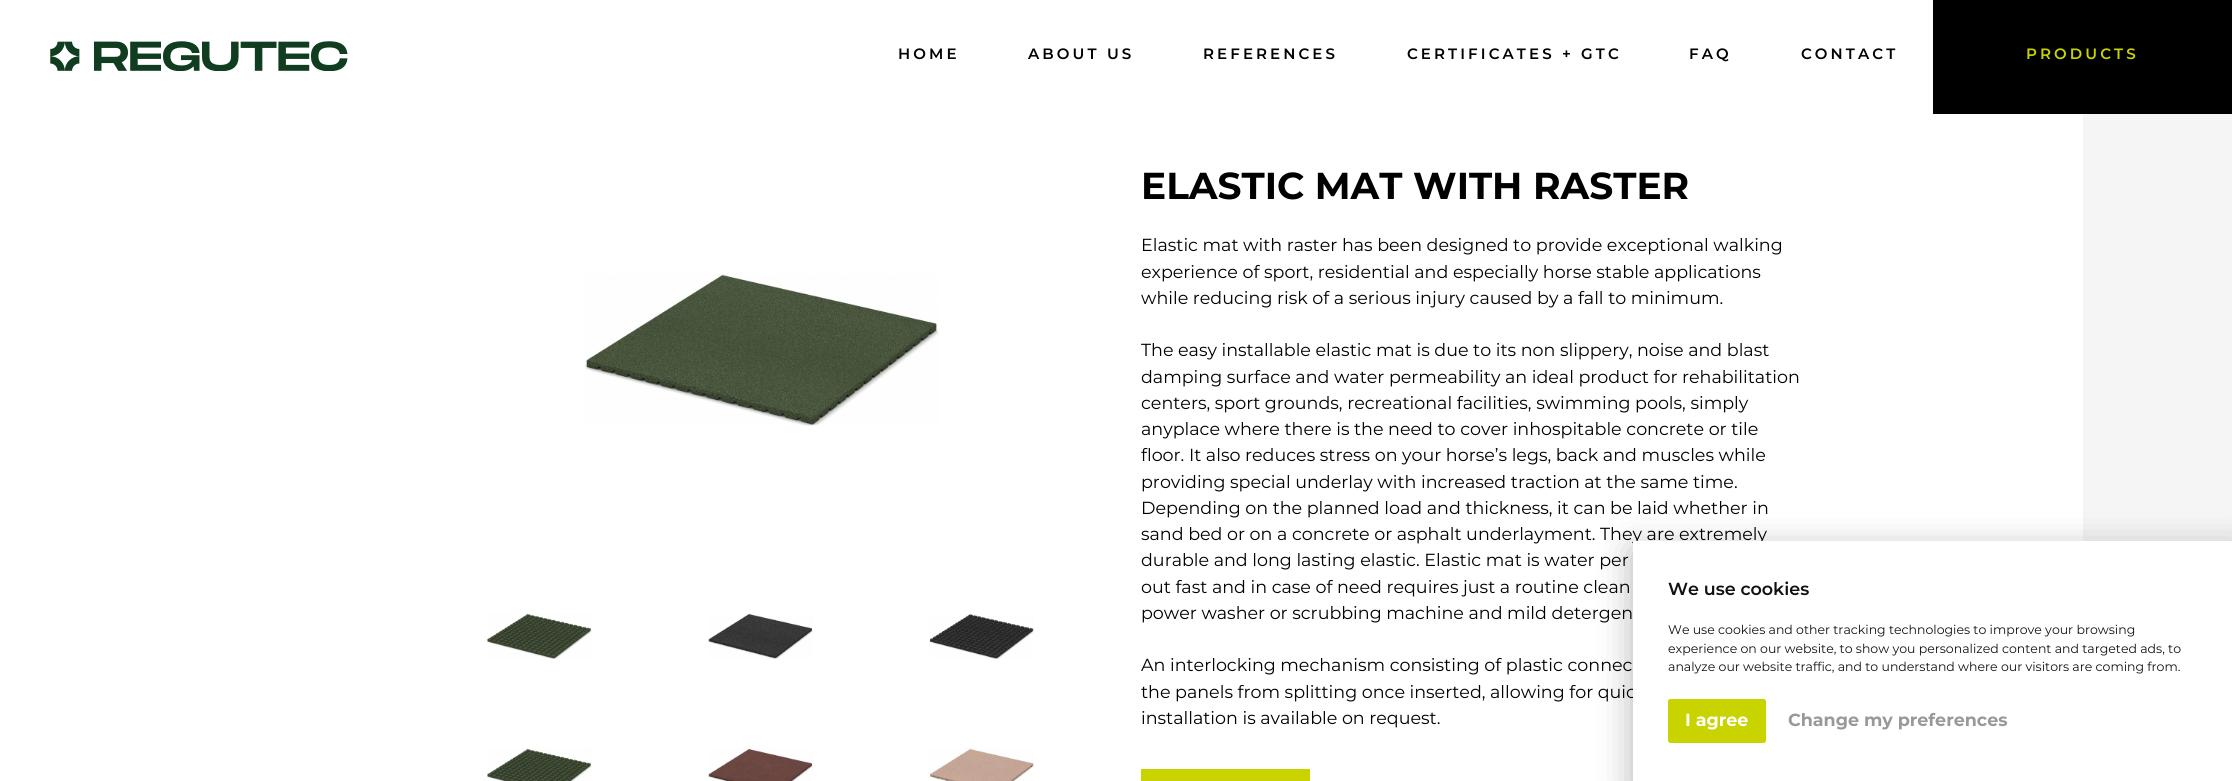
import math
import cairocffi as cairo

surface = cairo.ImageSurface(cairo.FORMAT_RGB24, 2232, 781)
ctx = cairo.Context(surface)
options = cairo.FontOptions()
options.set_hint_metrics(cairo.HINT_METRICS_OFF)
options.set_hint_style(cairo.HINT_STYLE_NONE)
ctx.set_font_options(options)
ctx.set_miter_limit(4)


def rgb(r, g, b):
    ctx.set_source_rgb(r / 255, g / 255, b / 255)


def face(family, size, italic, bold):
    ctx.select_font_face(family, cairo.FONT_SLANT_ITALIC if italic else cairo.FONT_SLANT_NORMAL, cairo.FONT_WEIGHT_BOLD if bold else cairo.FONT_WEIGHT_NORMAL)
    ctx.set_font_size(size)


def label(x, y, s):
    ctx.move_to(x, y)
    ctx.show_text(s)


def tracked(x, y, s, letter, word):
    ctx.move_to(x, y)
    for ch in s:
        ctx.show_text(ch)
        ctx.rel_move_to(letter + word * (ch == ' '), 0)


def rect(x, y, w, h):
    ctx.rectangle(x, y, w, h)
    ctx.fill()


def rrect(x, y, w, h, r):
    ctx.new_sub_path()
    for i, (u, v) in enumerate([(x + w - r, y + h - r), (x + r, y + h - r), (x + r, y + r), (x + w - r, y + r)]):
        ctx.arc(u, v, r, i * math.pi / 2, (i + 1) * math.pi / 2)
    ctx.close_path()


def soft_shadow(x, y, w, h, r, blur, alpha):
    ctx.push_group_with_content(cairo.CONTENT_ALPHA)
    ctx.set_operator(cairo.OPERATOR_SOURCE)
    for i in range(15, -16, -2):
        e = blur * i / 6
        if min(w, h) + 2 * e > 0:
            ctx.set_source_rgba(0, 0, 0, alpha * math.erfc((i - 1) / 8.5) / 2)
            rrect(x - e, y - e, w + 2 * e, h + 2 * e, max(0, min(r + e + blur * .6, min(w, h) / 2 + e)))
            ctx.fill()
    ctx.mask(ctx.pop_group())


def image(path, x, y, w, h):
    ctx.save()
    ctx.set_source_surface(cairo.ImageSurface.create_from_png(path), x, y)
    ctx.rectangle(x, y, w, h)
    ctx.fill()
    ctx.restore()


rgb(255, 255, 255)
ctx.paint()
image('image0.png', 50, 41, 298, 30)
face('Montserrat SemiBold', 15, 0, 0)
rgb(0, 0, 0)
tracked(898, 59, 'HOME', 3.1, 0)
tracked(1028, 59, 'ABOUT US', 3.1, 0)
tracked(1203, 59, 'REFERENCES', 3.1, 0)
tracked(1407, 59, 'CERTIFICATES + GTC', 3.1, 0)
tracked(1689, 59, 'FAQ', 3.1, 0)
tracked(1801, 59, 'CONTACT', 3.1, 0)
rect(1933, 0, 299, 114)
rgb(200, 211, 0)
tracked(2026, 59, 'PRODUCTS', 3.1, 0)
image('image1.png', 584, 274, 355, 152)
image('image2.png', 487, 613, 105, 46)
image('image3.png', 708, 614, 105, 45)
image('image4.png', 929, 614, 105, 45)
image('image5.png', 487, 748, 105, 33)
image('image6.png', 708, 748, 105, 33)
image('image7.png', 929, 748, 105, 33)
face('Montserrat', 37.5, 0, 1)
rgb(0, 0, 0)
label(1141, 199, 'ELASTIC MAT WITH RASTER')
face('Montserrat', 17.5, 0, 0)
label(1141, 251, 'Elastic mat with raster has been designed to provide exceptional walking')
label(1141, 278, 'experience of sport, residential and especially horse stable applications')
label(1141, 304, 'while reducing risk of a serious injury caused by a fall to minimum.')
label(1141, 356, 'The easy installable elastic mat is due to its non slippery, noise and blast')
label(1141, 383, 'damping surface and water permeability an ideal product for rehabilitation')
label(1141, 409, 'centers, sport grounds, recreational facilities, swimming pools, simply')
label(1141, 435, 'anyplace where there is the need to cover inhospitable concrete or tile')
label(1141, 461, 'floor. It also reduces stress on your horse’s legs, back and muscles while')
label(1141, 488, 'providing special underlay with increased traction at the same time.')
label(1141, 514, 'Depending on the planned load and thickness, it can be laid whether in')
label(1141, 540, 'sand bed or on a concrete or asphalt underlayment. They are extremely')
label(1141, 566, 'durable and long lasting elastic. Elastic mat is water per')
label(1141, 593, 'out fast and in case of need requires just a routine clean')
label(1141, 619, 'power washer or scrubbing machine and mild detergen')
label(1141, 671, 'An interlocking mechanism consisting of plastic connec')
label(1141, 698, 'the panels from splitting once inserted, allowing for quic')
label(1141, 724, 'installation is available on request.')
rgb(200, 211, 0)
rect(1141, 769, 169, 12)
rgb(245, 245, 245)
rect(2083, 114, 149, 427)
rgb(0, 0, 0)
soft_shadow(1633, 550, 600, 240, 0, 17.5, 0.3)
rgb(255, 255, 255)
rect(1633, 541, 599, 240)
face('Montserrat SemiBold', 17.5, 0, 0)
rgb(17, 17, 17)
label(1668, 595, 'We use cookies')
face('Montserrat', 12.5, 0, 0)
label(1668, 634, 'We use cookies and other tracking technologies to improve your browsing')
label(1668, 653, 'experience on our website, to show you personalized content and targeted ads, to')
label(1668, 671, 'analyze our website traffic, and to understand where our visitors are coming from.')
rgb(200, 211, 0)
rrect(1668, 699, 98, 44, 2.5)
ctx.fill()
face('Montserrat', 17.5, 0, 1)
rgb(255, 255, 255)
label(1685, 726, 'I agree')
rgb(153, 153, 153)
label(1788, 726, 'Change my preferences')
surface.write_to_png('render.png')
